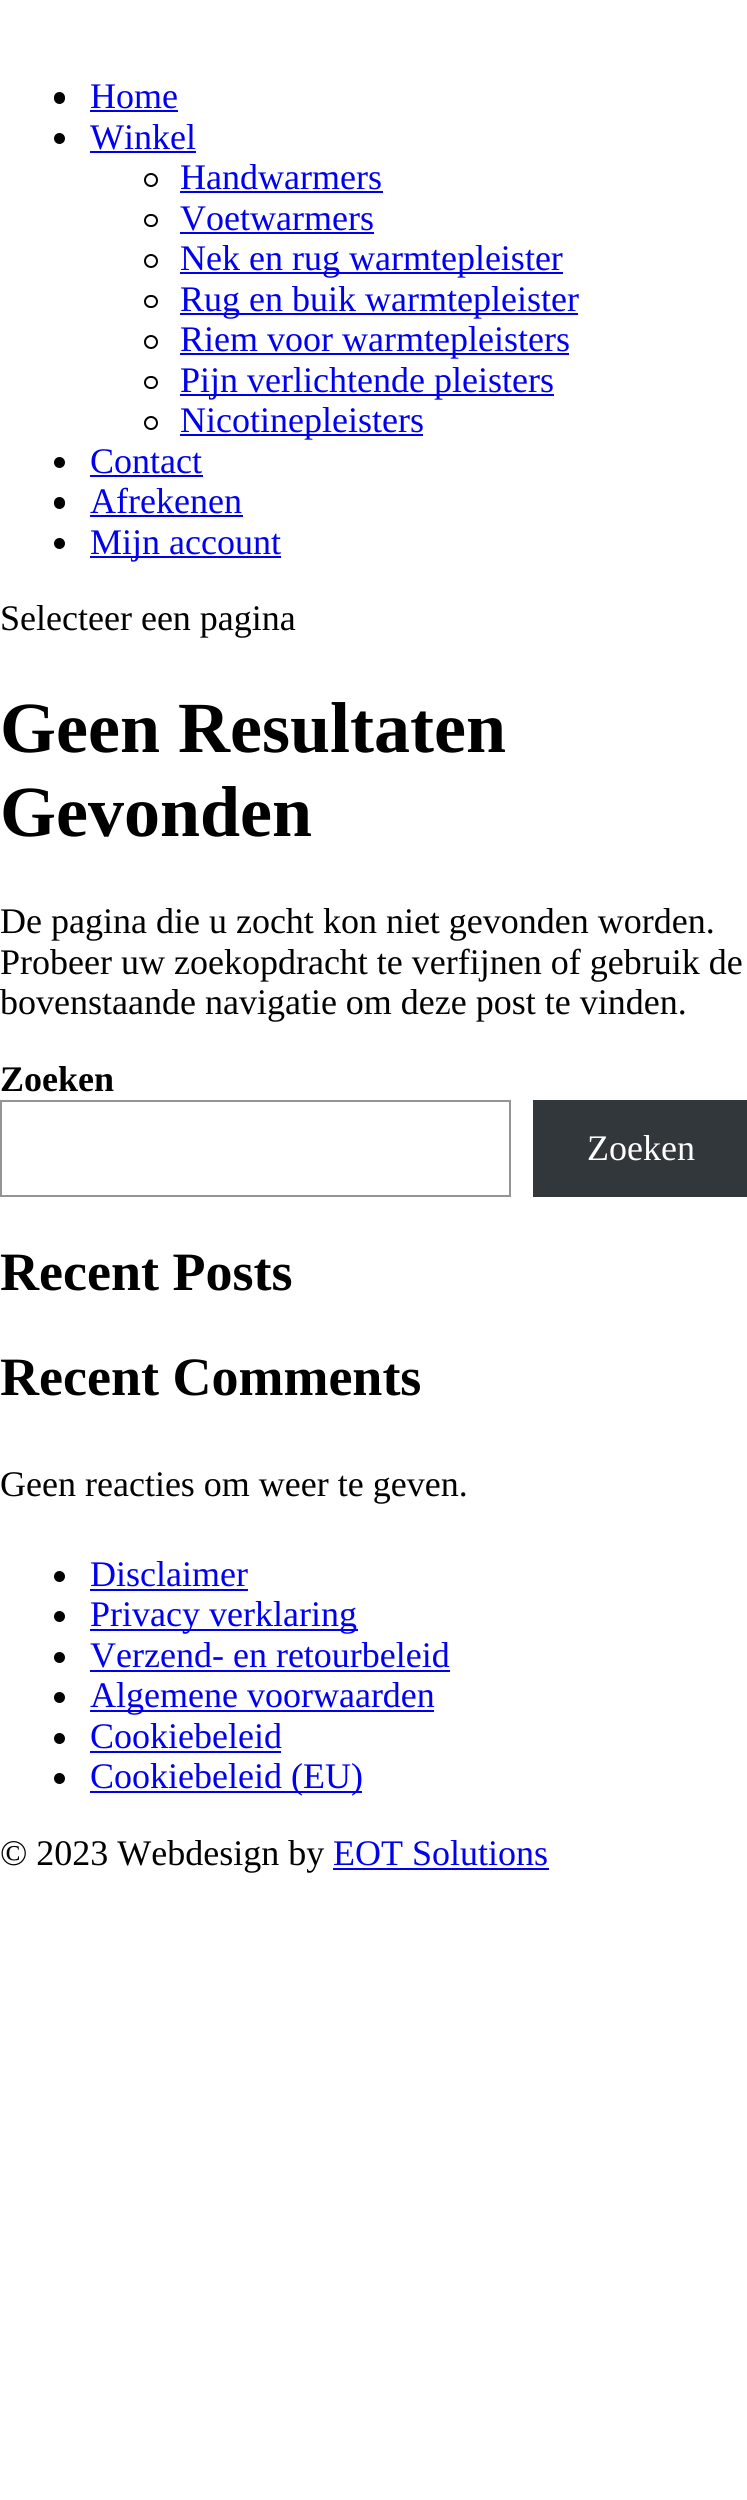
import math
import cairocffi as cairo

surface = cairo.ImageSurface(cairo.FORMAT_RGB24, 747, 2500)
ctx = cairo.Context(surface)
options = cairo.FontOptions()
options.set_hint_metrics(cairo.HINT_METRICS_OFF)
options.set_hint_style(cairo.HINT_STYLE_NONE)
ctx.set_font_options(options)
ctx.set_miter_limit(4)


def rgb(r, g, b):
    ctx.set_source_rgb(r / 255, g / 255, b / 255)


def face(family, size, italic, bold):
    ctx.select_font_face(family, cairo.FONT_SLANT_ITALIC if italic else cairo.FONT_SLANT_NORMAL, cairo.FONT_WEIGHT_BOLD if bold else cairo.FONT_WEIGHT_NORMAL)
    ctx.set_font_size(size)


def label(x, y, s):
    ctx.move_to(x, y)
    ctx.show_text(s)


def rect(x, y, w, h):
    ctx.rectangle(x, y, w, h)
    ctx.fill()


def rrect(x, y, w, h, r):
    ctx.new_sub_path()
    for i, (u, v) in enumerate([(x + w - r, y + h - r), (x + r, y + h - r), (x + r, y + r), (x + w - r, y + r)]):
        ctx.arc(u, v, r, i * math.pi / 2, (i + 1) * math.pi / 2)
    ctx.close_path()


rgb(255, 255, 255)
ctx.paint()
rgb(0, 0, 0)
rrect(54, 92, 11, 12, 5.5)
ctx.fill()
face('Liberation Serif', 36, 0, 0)
rgb(0, 0, 238)
label(90, 108, 'Home')
rect(90, 110, 88, 2)
rgb(0, 0, 0)
ctx.new_path()
ctx.arc(59.5, 138.5, 5.5, 0, 2 * math.pi)
ctx.fill()
rgb(0, 0, 238)
label(90, 149, 'Winkel')
rect(90, 151, 106, 2)
ctx.new_path()
ctx.arc(151, 180, 6, 0, 2 * math.pi)
rgb(0, 0, 0)
ctx.stroke()
rgb(0, 0, 238)
label(180, 189, 'Handwarmers')
rect(180, 191, 203, 2)
rrect(145, 215, 12, 11, 5.5)
rgb(0, 0, 0)
ctx.stroke()
rgb(0, 0, 238)
label(180, 230, 'Voetwarmers')
rect(180, 232, 194, 2)
ctx.new_path()
ctx.arc(151, 261, 6, 0, 2 * math.pi)
rgb(0, 0, 0)
ctx.stroke()
rgb(0, 0, 238)
rect(180, 272, 383, 2)
label(180, 270, 'Nek en rug warmtepleister')
rrect(145, 296, 12, 11, 5.5)
rgb(0, 0, 0)
ctx.stroke()
rgb(0, 0, 238)
rect(180, 313, 398, 2)
label(180, 311, 'Rug en buik warmtepleister')
ctx.new_path()
ctx.arc(151, 342, 6, 0, 2 * math.pi)
rgb(0, 0, 0)
ctx.stroke()
rgb(0, 0, 238)
rect(180, 353, 389, 2)
label(180, 351, 'Riem voor warmtepleisters')
rrect(145, 377, 12, 11, 5.5)
rgb(0, 0, 0)
ctx.stroke()
rgb(0, 0, 238)
rect(180, 394, 374, 2)
label(180, 392, 'Pijn verlichtende pleisters')
ctx.new_path()
ctx.arc(151, 423, 6, 0, 2 * math.pi)
rgb(0, 0, 0)
ctx.stroke()
rgb(0, 0, 238)
rect(180, 434, 243, 2)
label(180, 432, 'Nicotinepleisters')
rgb(0, 0, 0)
ctx.new_path()
ctx.arc(59.5, 462.5, 5.5, 0, 2 * math.pi)
ctx.fill()
rgb(0, 0, 238)
label(90, 473, 'Contact')
rect(90, 475, 113, 2)
rgb(0, 0, 0)
rrect(54, 497, 11, 12, 5.5)
ctx.fill()
rgb(0, 0, 238)
label(90, 513, 'Afrekenen')
rect(90, 515, 153, 2)
rgb(0, 0, 0)
ctx.new_path()
ctx.arc(59.5, 543.5, 5.5, 0, 2 * math.pi)
ctx.fill()
rgb(0, 0, 238)
rect(90, 556, 191, 2)
label(90, 554, 'Mijn account')
rgb(0, 0, 0)
label(0, 630, 'Selecteer een pagina')
face('Liberation Serif', 72, 0, 1)
label(0, 752, 'Geen Resultaten')
label(0, 836, 'Gevonden')
face('Liberation Serif', 36, 0, 0)
label(0, 933, 'De pagina die u zocht kon niet gevonden worden.')
label(0, 974, 'Probeer uw zoekopdracht te verfijnen of gebruik de')
label(0, 1014, 'bovenstaande navigatie om deze post te vinden.')
face('Liberation Serif', 36, 0, 1)
label(0, 1091, 'Zoeken')
ctx.rectangle(1, 1101, 509, 95)
rgb(148, 148, 148)
ctx.stroke()
rgb(50, 55, 60)
rect(533, 1100, 214, 97)
face('Liberation Serif', 36, 0, 0)
rgb(255, 255, 255)
label(587, 1160, 'Zoeken')
face('Liberation Serif', 54, 0, 1)
rgb(0, 0, 0)
label(0, 1290, 'Recent Posts')
label(0, 1395, 'Recent Comments')
face('Liberation Serif', 36, 0, 0)
label(0, 1496, 'Geen reacties om weer te geven.')
ctx.new_path()
ctx.arc(59.5, 1576.5, 5.5, 0, 2 * math.pi)
ctx.fill()
rgb(0, 0, 238)
label(90, 1586, 'Disclaimer')
rect(90, 1589, 158, 2)
rgb(0, 0, 0)
ctx.new_path()
ctx.arc(59.5, 1616.5, 5.5, 0, 2 * math.pi)
ctx.fill()
rgb(0, 0, 238)
rect(90, 1629, 268, 2)
label(90, 1626, 'Privacy verklaring')
rgb(0, 0, 0)
ctx.new_path()
ctx.arc(59.5, 1657.5, 5.5, 0, 2 * math.pi)
ctx.fill()
rgb(0, 0, 238)
label(90, 1667, 'Verzend- en retourbeleid')
rect(90, 1670, 360, 2)
rgb(0, 0, 0)
ctx.new_path()
ctx.arc(59.5, 1697.5, 5.5, 0, 2 * math.pi)
ctx.fill()
rgb(0, 0, 238)
rect(90, 1710, 344, 2)
label(90, 1707, 'Algemene voorwaarden')
rgb(0, 0, 0)
ctx.new_path()
ctx.arc(59.5, 1738.5, 5.5, 0, 2 * math.pi)
ctx.fill()
rgb(0, 0, 238)
label(90, 1748, 'Cookiebeleid')
rect(90, 1751, 191, 2)
rgb(0, 0, 0)
ctx.new_path()
ctx.arc(59.5, 1778.5, 5.5, 0, 2 * math.pi)
ctx.fill()
rgb(0, 0, 238)
rect(90, 1791, 272, 2)
label(90, 1788, 'Cookiebeleid (EU)')
rgb(0, 0, 0)
label(0, 1865, '© 2023 Webdesign by')
rgb(0, 0, 238)
label(333, 1865, 'EOT Solutions')
rect(333, 1868, 216, 2)
surface.write_to_png('render.png')
